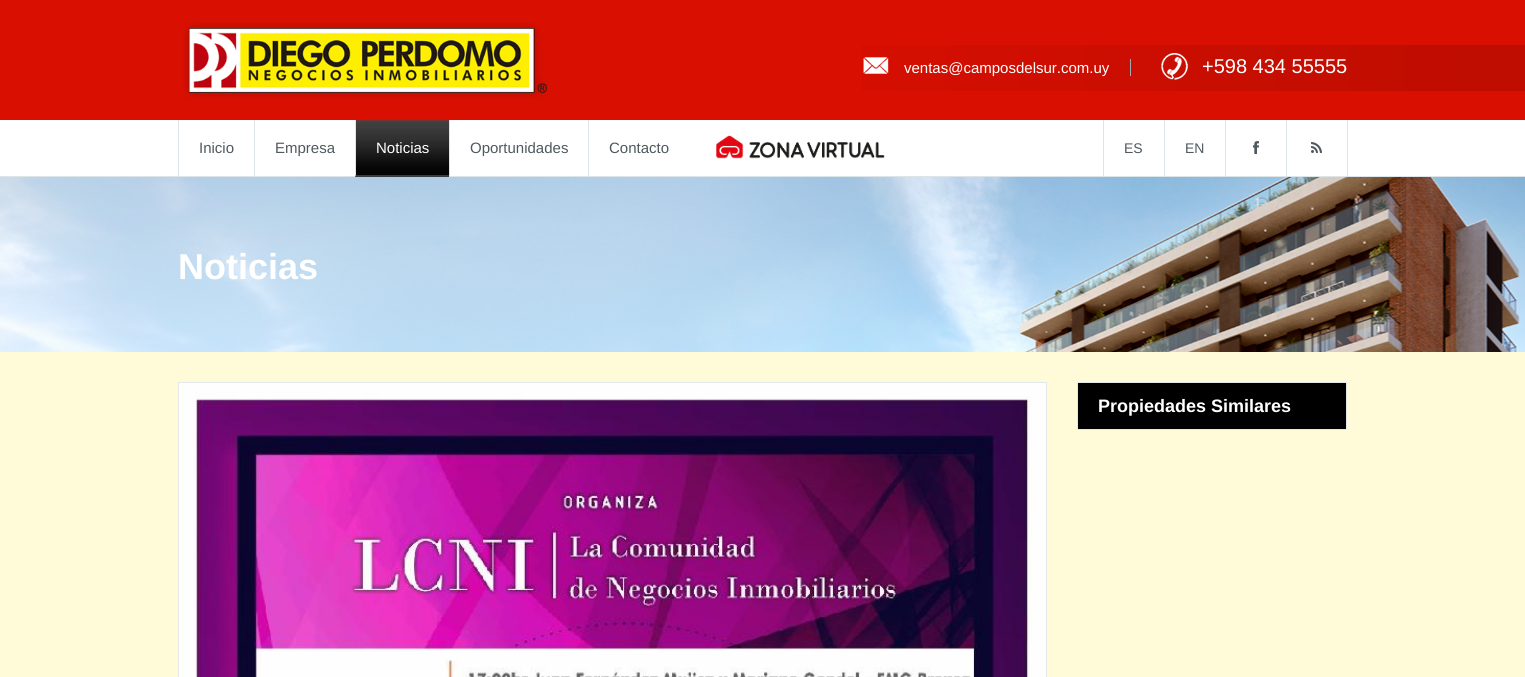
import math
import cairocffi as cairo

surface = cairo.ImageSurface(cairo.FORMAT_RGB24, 1525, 677)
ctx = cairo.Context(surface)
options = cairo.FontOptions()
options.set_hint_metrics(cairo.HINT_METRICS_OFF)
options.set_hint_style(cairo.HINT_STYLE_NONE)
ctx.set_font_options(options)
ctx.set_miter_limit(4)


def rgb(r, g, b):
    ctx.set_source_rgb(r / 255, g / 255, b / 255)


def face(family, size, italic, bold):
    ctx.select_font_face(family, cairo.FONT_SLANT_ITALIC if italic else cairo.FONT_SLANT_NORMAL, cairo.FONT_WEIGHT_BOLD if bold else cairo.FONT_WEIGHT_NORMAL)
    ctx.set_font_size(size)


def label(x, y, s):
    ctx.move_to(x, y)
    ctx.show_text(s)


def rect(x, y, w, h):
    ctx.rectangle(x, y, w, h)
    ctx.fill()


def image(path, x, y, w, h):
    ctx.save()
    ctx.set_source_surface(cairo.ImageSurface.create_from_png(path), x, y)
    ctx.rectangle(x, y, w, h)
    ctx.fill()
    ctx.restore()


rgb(255, 251, 216)
ctx.paint()
rgb(217, 15, 1)
rect(0, 0, 1525, 120)
image('image0.png', 862, 45, 663, 46)
image('image1.png', 183, 22, 364, 77)
rgb(155, 172, 182)
rect(1130, 59, 1, 17)
image('image2.png', 863, 57, 26, 17)
face('Liberation Sans', 15, 0, 0)
rgb(255, 255, 255)
label(904, 73, 'ventas@camposdelsur.com.uy')
image('image3.png', 1161, 53, 27, 27)
face('Liberation Sans', 20, 0, 0)
label(1202, 73, '+598 434 55555')
rect(0, 120, 1525, 56)
rgb(222, 229, 232)
rect(0, 176, 1525, 1)
rect(178, 120, 1, 56)
face('Liberation Sans', 15, 0, 0)
rgb(79, 89, 94)
label(199, 153, 'Inicio')
rgb(222, 229, 232)
rect(254, 120, 1, 56)
rgb(79, 89, 94)
label(275, 153, 'Empresa')
image('image4.png', 355, 120, 94, 57)
rgb(54, 61, 65)
ctx.new_path()
ctx.move_to(449, 177)
ctx.line_to(355, 177)
ctx.line_to(356, 175)
ctx.line_to(449, 175)
ctx.close_path()
ctx.fill()
rgb(222, 229, 232)
ctx.new_path()
ctx.move_to(355, 177)
ctx.line_to(355, 120)
ctx.line_to(356, 120)
ctx.line_to(356, 175)
ctx.close_path()
ctx.fill()
rgb(255, 255, 255)
label(376, 153, 'Noticias')
rgb(222, 229, 232)
rect(449, 120, 1, 56)
rgb(79, 89, 94)
label(470, 153, 'Oportunidades')
rgb(222, 229, 232)
rect(588, 120, 1, 56)
rgb(79, 89, 94)
label(609, 153, 'Contacto')
image('image5.png', 716, 135, 169, 24)
rgb(222, 229, 232)
rect(1103, 120, 1, 56)
face('Liberation Sans', 14, 0, 0)
rgb(79, 89, 94)
label(1124, 153, 'ES')
rgb(222, 229, 232)
rect(1164, 120, 1, 56)
rgb(79, 89, 94)
label(1185, 153, 'EN')
rgb(222, 229, 232)
rect(1225, 120, 1, 56)
image('image6.png', 1253, 141, 6, 13)
rect(1347, 120, 1, 56)
rect(1286, 120, 1, 56)
image('image7.png', 1311, 142, 11, 11)
image('image8.png', 0, 177, 1525, 175)
face('Liberation Sans', 36, 0, 1)
rgb(255, 255, 255)
label(178, 279, 'Noticias')
ctx.rectangle(178.5, 382.5, 868, 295)
rgb(226, 232, 236)
ctx.set_line_width(1)
ctx.stroke()
image('image9.png', 179, 383, 867, 294)
ctx.rectangle(1077.5, 382.5, 269, 47)
ctx.stroke()
rgb(0, 0, 0)
rect(1078, 383, 268, 46)
face('Liberation Sans', 18, 0, 1)
rgb(255, 255, 255)
label(1098, 412, 'Propiedades Similares')
surface.write_to_png('render.png')
